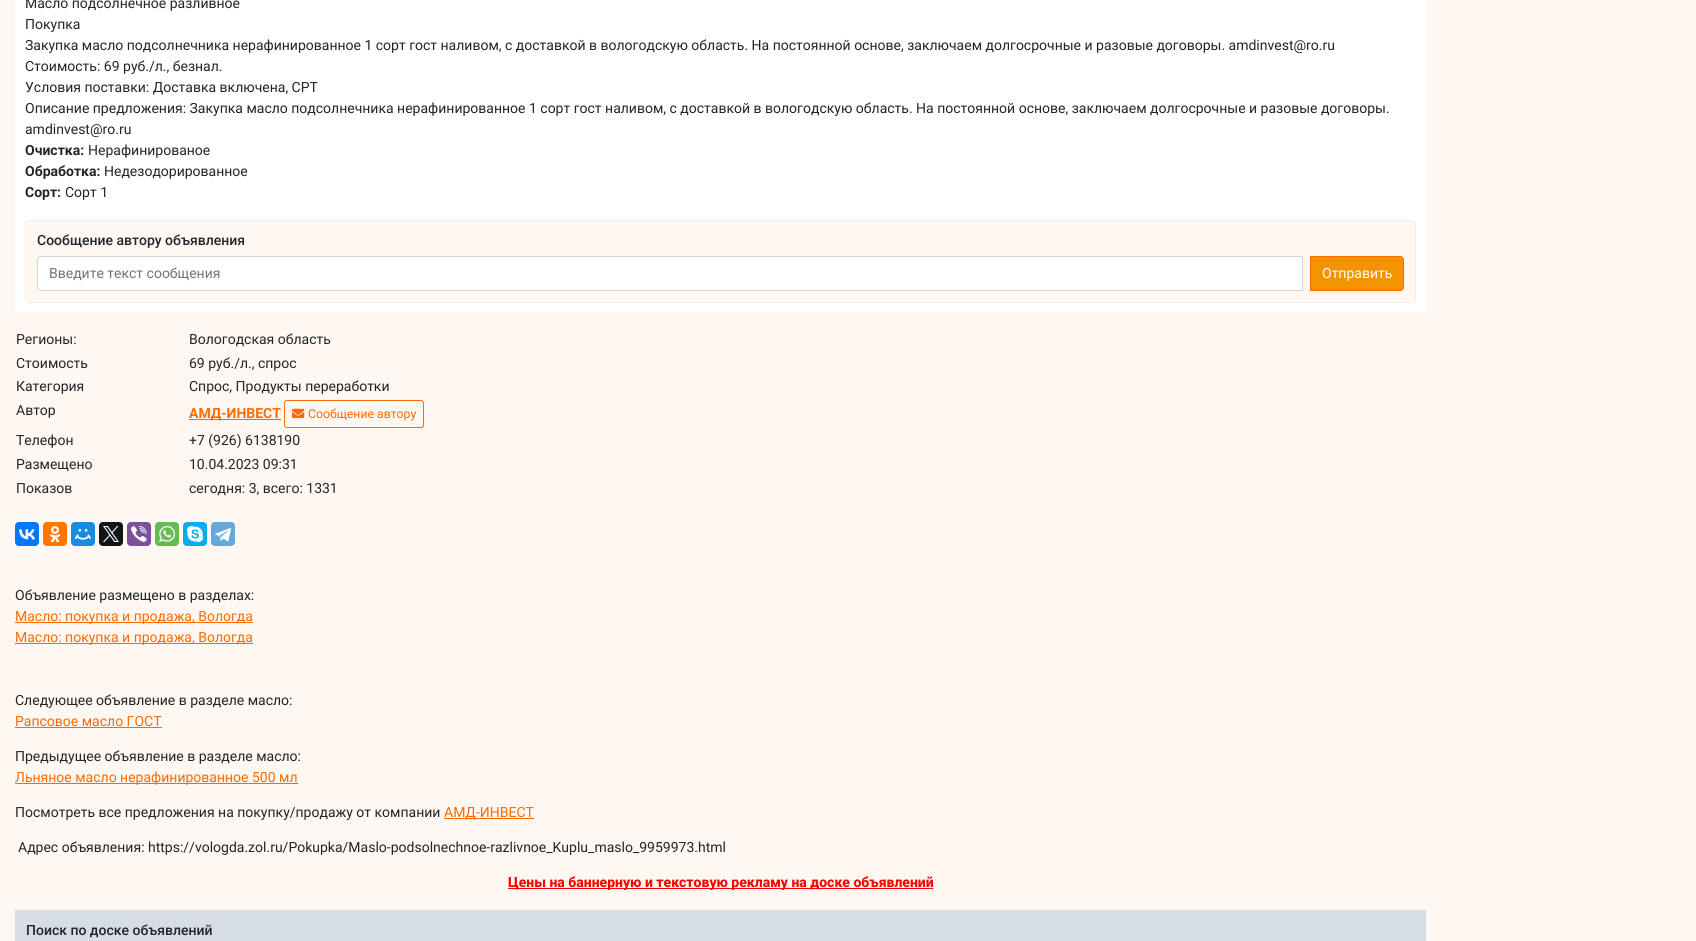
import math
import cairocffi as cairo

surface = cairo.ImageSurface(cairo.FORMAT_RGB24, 1696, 941)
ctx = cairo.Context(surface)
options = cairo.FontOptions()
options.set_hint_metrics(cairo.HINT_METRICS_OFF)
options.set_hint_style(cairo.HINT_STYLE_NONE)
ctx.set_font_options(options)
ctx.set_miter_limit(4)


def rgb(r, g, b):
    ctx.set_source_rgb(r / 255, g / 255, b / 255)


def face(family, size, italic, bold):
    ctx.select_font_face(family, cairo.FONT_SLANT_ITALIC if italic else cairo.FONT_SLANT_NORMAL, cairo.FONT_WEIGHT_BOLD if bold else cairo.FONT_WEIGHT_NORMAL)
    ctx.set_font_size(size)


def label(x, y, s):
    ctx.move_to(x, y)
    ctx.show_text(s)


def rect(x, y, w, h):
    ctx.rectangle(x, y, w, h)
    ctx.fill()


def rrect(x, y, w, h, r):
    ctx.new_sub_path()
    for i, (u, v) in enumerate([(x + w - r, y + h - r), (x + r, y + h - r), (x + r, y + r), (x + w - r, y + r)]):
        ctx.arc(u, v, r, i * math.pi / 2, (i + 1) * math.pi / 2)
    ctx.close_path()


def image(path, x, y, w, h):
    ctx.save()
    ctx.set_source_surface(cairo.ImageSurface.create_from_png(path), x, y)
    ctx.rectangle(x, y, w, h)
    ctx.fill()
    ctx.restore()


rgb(255, 247, 242)
ctx.paint()
rgb(255, 255, 255)
rect(15, 0, 1411, 313)
face('Roboto', 14, 0, 0)
rgb(33, 37, 41)
label(25, 8, 'Масло подсолнечное разливное')
label(25, 29, 'Покупка')
label(25, 50, 'Закупка масло подсолнечника нерафинированное 1 сорт гост наливом, с доставкой в вологодскую область. На постоянной основе, заключаем долгосрочные и разовые договоры. amdinvest@ro.ru')
label(25, 71, 'Стоимость: 69 руб./л., безнал.')
label(25, 92, 'Условия поставки: Доставка включена, CPT')
label(25, 113, 'Описание предложения: Закупка масло подсолнечника нерафинированное 1 сорт гост наливом, с доставкой в вологодскую область. На постоянной основе, заключаем долгосрочные и разовые договоры.')
label(25, 134, 'amdinvest@ro.ru')
face('Roboto', 14, 0, 1)
label(25, 155, 'Очистка:')
face('Roboto', 14, 0, 0)
label(88, 155, 'Нерафинированое')
face('Roboto', 14, 0, 1)
label(25, 176, 'Обработка:')
face('Roboto', 14, 0, 0)
label(104, 176, 'Недезодорированное')
face('Roboto', 14, 0, 1)
label(25, 197, 'Сорт:')
face('Roboto', 14, 0, 0)
label(65, 197, 'Сорт 1')
rgb(255, 247, 242)
rrect(25.5, 220.5, 1390, 82, 3.5)
ctx.fill_preserve()
rgb(238, 238, 238)
ctx.set_line_width(1)
ctx.stroke()
face('Roboto Medium', 14, 0, 0)
rgb(33, 37, 41)
label(37, 245, 'Сообщение автору объявления')
rgb(255, 255, 255)
ctx.new_path()
ctx.move_to(40.5, 257)
ctx.line_to(1302, 257)
ctx.line_to(1302, 290)
ctx.line_to(40.5, 290)
ctx.curve_to(39, 290, 38, 289, 38, 287.5)
ctx.line_to(38, 259.5)
ctx.curve_to(38, 258, 39, 257, 40.5, 257)
ctx.close_path()
ctx.fill()
ctx.new_path()
ctx.move_to(41, 256.5)
ctx.line_to(1302.5, 256.5)
ctx.line_to(1302.5, 290.5)
ctx.line_to(41, 290.5)
ctx.curve_to(39, 290.5, 37.5, 289, 37.5, 287)
ctx.line_to(37.5, 260)
ctx.curve_to(37.5, 258, 39, 256.5, 41, 256.5)
ctx.close_path()
rgb(206, 212, 218)
ctx.stroke()
face('Roboto', 14, 0, 0)
rgb(108, 117, 125)
label(49, 278, 'Введите текст сообщения')
rgb(244, 147, 1)
ctx.new_path()
ctx.move_to(1310.5, 256.5)
ctx.line_to(1400, 256.5)
ctx.curve_to(1402, 256.5, 1403.5, 258, 1403.5, 260)
ctx.line_to(1403.5, 287)
ctx.curve_to(1403.5, 289, 1402, 290.5, 1400, 290.5)
ctx.line_to(1310.5, 290.5)
ctx.close_path()
ctx.fill_preserve()
rgb(255, 106, 0)
ctx.stroke()
rgb(255, 255, 255)
label(1322, 278, 'Отправить')
rgb(33, 37, 41)
label(16, 344, 'Регионы:')
label(189, 344, 'Вологодская область')
label(16, 368, 'Стоимость')
label(189, 368, '69 руб./л., спрос')
label(16, 391, 'Категория')
label(189, 391, 'Спрос, Продукты переработки')
label(16, 415, 'Автор')
rgb(255, 106, 0)
rect(189, 419, 92, 1)
face('Roboto', 14, 0, 1)
label(189, 418, 'АМД-ИНВЕСТ')
rrect(284.5, 400.5, 139, 27, 2.5)
ctx.stroke()
image('image0.png', 292, 408, 13, 10)
face('Roboto', 12.25, 0, 0)
label(308, 418, 'Сообщение автору')
face('Roboto', 14, 0, 0)
rgb(33, 37, 41)
label(16, 445, 'Телефон')
label(189, 445, '+7 (926) 6138190')
label(16, 469, 'Размещено')
label(189, 469, '10.04.2023 09:31')
label(16, 493, 'Показов')
label(189, 493, 'cегодня: 3, всего: 1331')
rgb(0, 119, 255)
rrect(15, 522, 24, 24, 4)
ctx.fill()
image('image1.png', 19, 529, 16, 11)
rgb(255, 119, 0)
rrect(43, 522, 24, 24, 4)
ctx.fill()
image('image2.png', 49, 526, 12, 16)
rgb(22, 141, 226)
rrect(71, 522, 24, 24, 4)
ctx.fill()
image('image3.png', 75, 529, 16, 11)
rgb(15, 20, 25)
rrect(99, 522, 24, 24, 4)
ctx.fill()
image('image4.png', 103, 526, 16, 16)
rgb(123, 81, 157)
rrect(127, 522, 24, 24, 4)
ctx.fill()
image('image5.png', 131, 526, 16, 16)
rgb(101, 188, 84)
rrect(155, 522, 24, 24, 4)
ctx.fill()
image('image6.png', 159, 526, 16, 16)
rgb(0, 175, 240)
rrect(183, 522, 24, 24, 4)
ctx.fill()
image('image7.png', 187, 526, 16, 16)
rgb(100, 169, 220)
rrect(211, 522, 24, 24, 4)
ctx.fill()
image('image8.png', 215, 528, 16, 14)
rgb(33, 37, 41)
label(15, 600, 'Объявление размещено в разделах:')
rgb(255, 106, 0)
rect(15, 622, 238, 1)
label(15, 621, 'Масло: покупка и продажа, Вологда')
rect(15, 643, 238, 1)
label(15, 642, 'Масло: покупка и продажа, Вологда')
rgb(33, 37, 41)
label(15, 705, 'Следующее объявление в разделе масло:')
rgb(255, 106, 0)
label(15, 726, 'Рапсовое масло ГОСТ')
rect(15, 727, 147, 1)
rgb(33, 37, 41)
label(15, 761, 'Предыдущее объявление в разделе масло:')
rgb(255, 106, 0)
rect(15, 783, 283, 1)
label(15, 782, 'Льняное масло нерафинированное 500 мл')
rgb(33, 37, 41)
label(15, 817, 'Посмотреть все предложения на покупку/продажу от компании')
rgb(255, 106, 0)
rect(444, 818, 90, 1)
label(444, 817, 'АМД-ИНВЕСТ')
rgb(33, 37, 41)
label(18, 852, 'Адрес объявления: https://vologda.zol.ru/Pokupka/Maslo-podsolnechnoe-razlivnoe_Kuplu_maslo_9959973.html')
rgb(255, 0, 0)
rect(508, 888, 425, 1)
face('Roboto ExtraBold', 14, 0, 0)
label(508, 887, 'Цены на баннерную и текстовую рекламу на доске объявлений')
rgb(214, 221, 228)
rect(15, 910, 1411, 31)
face('Roboto Medium', 14, 0, 0)
rgb(33, 37, 41)
label(26, 935, 'Поиск по доске объявлений')
surface.write_to_png('render.png')
